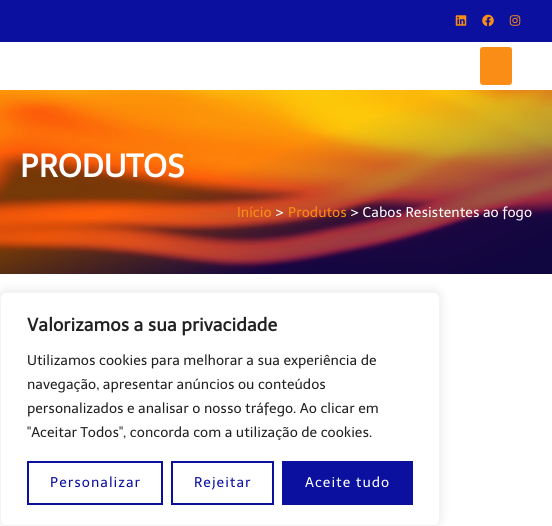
import math
import cairocffi as cairo

surface = cairo.ImageSurface(cairo.FORMAT_RGB24, 552, 526)
ctx = cairo.Context(surface)
options = cairo.FontOptions()
options.set_hint_metrics(cairo.HINT_METRICS_OFF)
options.set_hint_style(cairo.HINT_STYLE_NONE)
ctx.set_font_options(options)
ctx.set_miter_limit(4)


def rgb(r, g, b):
    ctx.set_source_rgb(r / 255, g / 255, b / 255)


def face(family, size, italic, bold):
    ctx.select_font_face(family, cairo.FONT_SLANT_ITALIC if italic else cairo.FONT_SLANT_NORMAL, cairo.FONT_WEIGHT_BOLD if bold else cairo.FONT_WEIGHT_NORMAL)
    ctx.set_font_size(size)


def label(x, y, s):
    ctx.move_to(x, y)
    ctx.show_text(s)


def tracked(x, y, s, letter, word):
    ctx.move_to(x, y)
    for ch in s:
        ctx.show_text(ch)
        ctx.rel_move_to(letter + word * (ch == ' '), 0)


def rect(x, y, w, h):
    ctx.rectangle(x, y, w, h)
    ctx.fill()


def rrect(x, y, w, h, r):
    ctx.new_sub_path()
    for i, (u, v) in enumerate([(x + w - r, y + h - r), (x + r, y + h - r), (x + r, y + r), (x + w - r, y + r)]):
        ctx.arc(u, v, r, i * math.pi / 2, (i + 1) * math.pi / 2)
    ctx.close_path()


def soft_shadow(x, y, w, h, r, blur, alpha):
    ctx.push_group_with_content(cairo.CONTENT_ALPHA)
    ctx.set_operator(cairo.OPERATOR_SOURCE)
    for i in range(15, -16, -2):
        e = blur * i / 6
        if min(w, h) + 2 * e > 0:
            ctx.set_source_rgba(0, 0, 0, alpha * math.erfc((i - 1) / 8.5) / 2)
            rrect(x - e, y - e, w + 2 * e, h + 2 * e, max(0, min(r + e + blur * .6, min(w, h) / 2 + e)))
            ctx.fill()
    ctx.mask(ctx.pop_group())


def image(path, x, y, w, h):
    ctx.save()
    ctx.set_source_surface(cairo.ImageSurface.create_from_png(path), x, y)
    ctx.rectangle(x, y, w, h)
    ctx.fill()
    ctx.restore()


rgb(255, 255, 255)
ctx.paint()
rgb(11, 16, 159)
rect(0, 0, 552, 42)
image('image0.png', 455, 15, 12, 11)
image('image1.png', 482, 14, 12, 13)
image('image2.png', 509, 15, 12, 11)
rgb(250, 141, 21)
rrect(480, 47, 32, 38, 3)
ctx.fill()
image('image3.png', 0, 90, 552, 184)
face('Telex', 32, 0, 1)
rgb(255, 255, 255)
label(20, 177, 'PRODUTOS')
face('Telex', 14, 0, 0)
rgb(250, 141, 21)
label(237, 217, 'Início')
rgb(255, 255, 255)
label(275, 217, '>')
rgb(250, 141, 21)
label(288, 217, 'Produtos')
rgb(255, 255, 255)
label(350, 217, '> Cabos Resistentes ao fogo')
rgb(172, 171, 171)
soft_shadow(0, 291, 440, 234, 6, 5, 0.3)
rgb(255, 255, 255)
rrect(0.5, 292.5, 439, 233, 5.5)
ctx.fill_preserve()
rgb(244, 244, 244)
ctx.set_line_width(1)
ctx.stroke()
face('Telex', 18, 0, 1)
rgb(33, 33, 33)
label(27, 331, 'Valorizamos a sua privacidade')
face('Telex', 14, 0, 0)
label(27, 365, 'Utilizamos cookies para melhorar a sua experiência de')
label(27, 389, 'navegação, apresentar anúncios ou conteúdos')
label(27, 413, 'personalizados e analisar o nosso tráfego. Ao clicar em')
label(27, 437, '"Aceitar Todos", concorda com a utilização de cookies.')
ctx.rectangle(28, 462, 134, 42)
rgb(11, 16, 159)
ctx.set_line_width(2)
ctx.stroke()
tracked(50, 487, 'Personalizar', 1, 0)
ctx.rectangle(172, 462, 101, 42)
ctx.stroke()
tracked(194, 487, 'Rejeitar', 1, 0)
rect(282, 461, 131, 44)
rgb(255, 255, 255)
tracked(305, 487, 'Aceite tudo', 1, 0)
surface.write_to_png('render.png')
